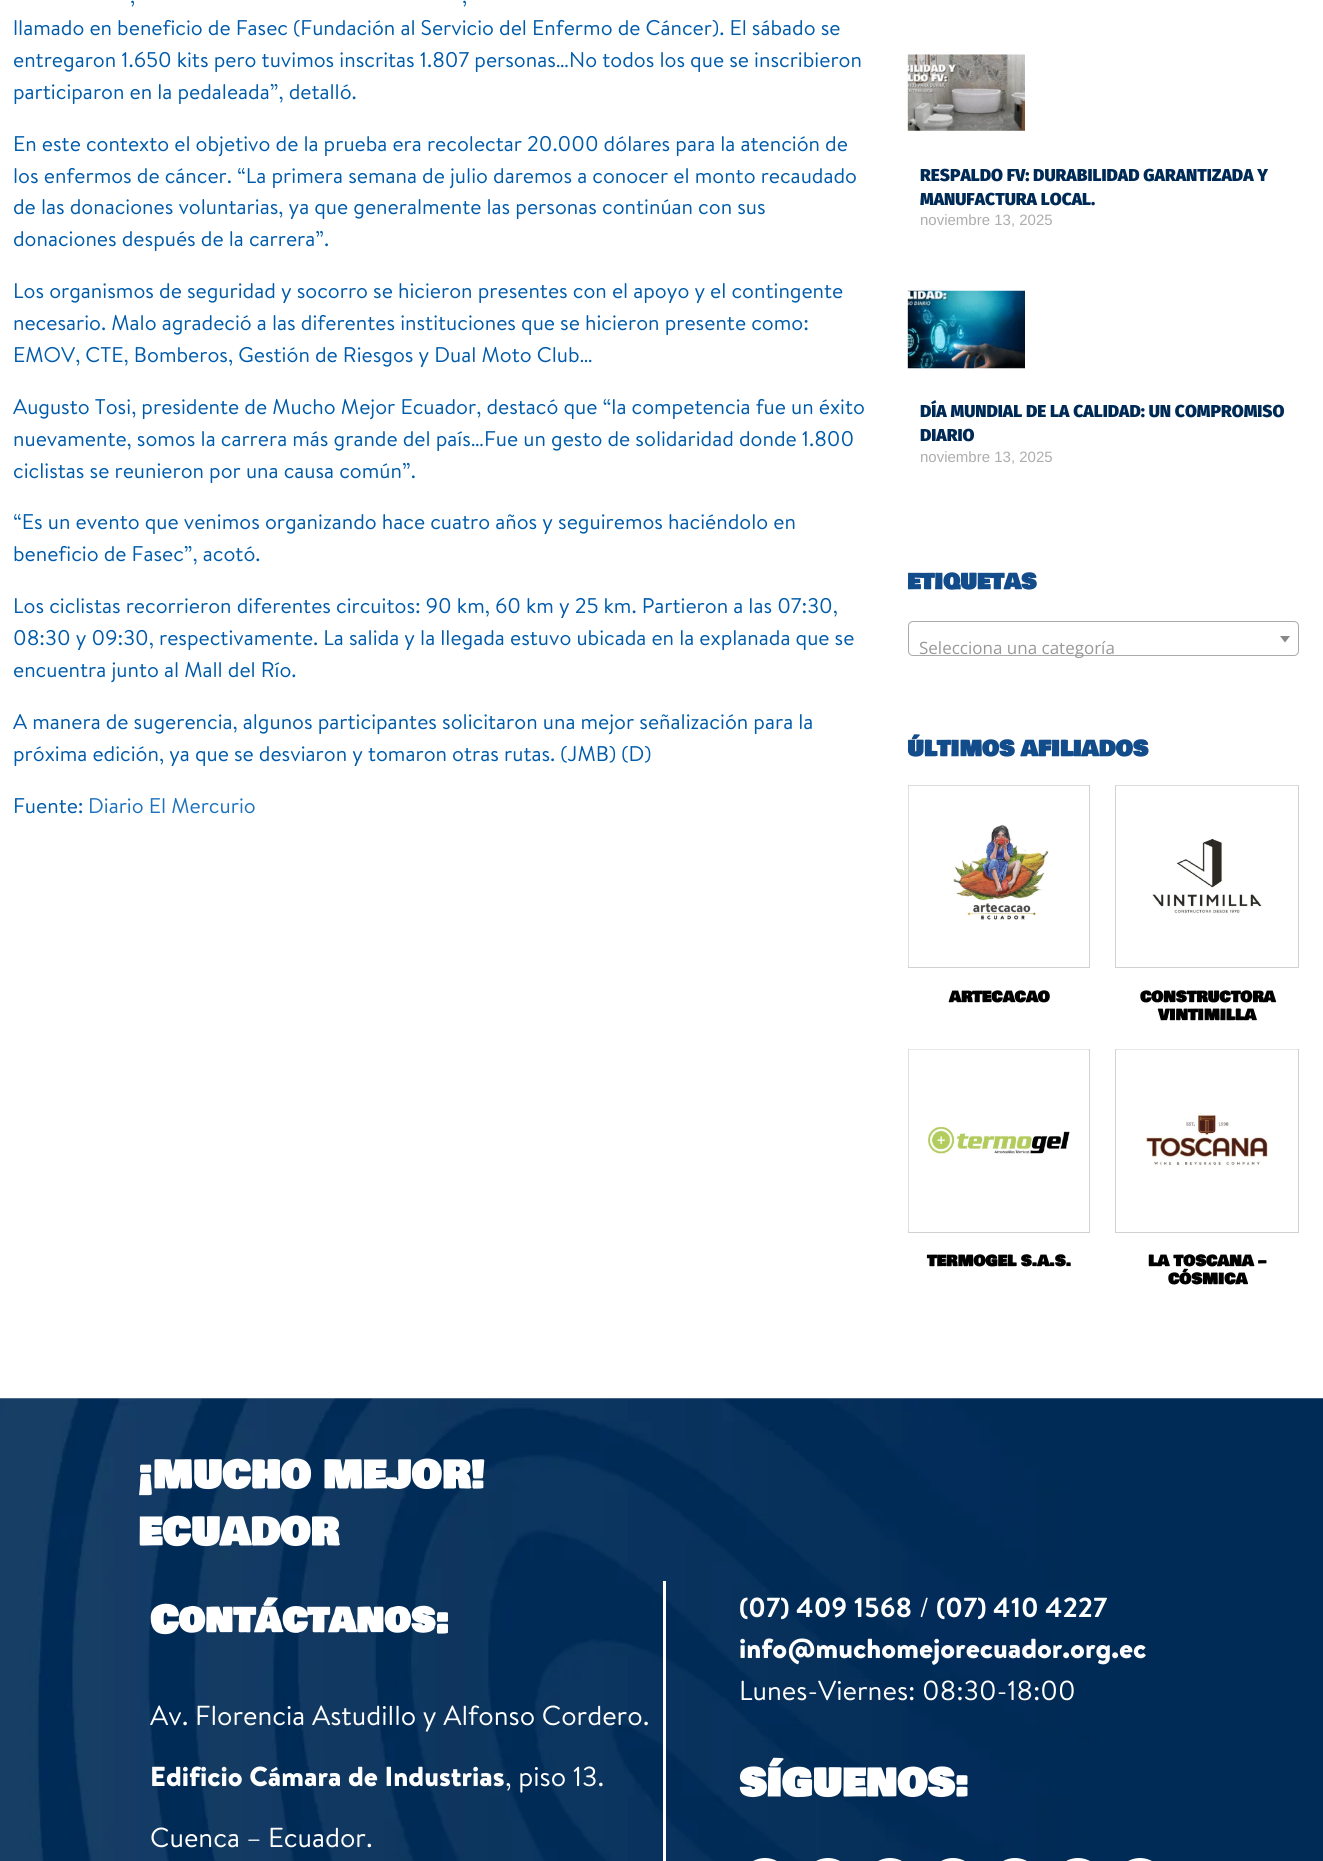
import math
import cairocffi as cairo

surface = cairo.ImageSurface(cairo.FORMAT_RGB24, 1323, 1861)
ctx = cairo.Context(surface)
options = cairo.FontOptions()
options.set_hint_metrics(cairo.HINT_METRICS_OFF)
options.set_hint_style(cairo.HINT_STYLE_NONE)
ctx.set_font_options(options)
ctx.set_miter_limit(4)


def rgb(r, g, b):
    ctx.set_source_rgb(r / 255, g / 255, b / 255)


def face(family, size, italic, bold):
    ctx.select_font_face(family, cairo.FONT_SLANT_ITALIC if italic else cairo.FONT_SLANT_NORMAL, cairo.FONT_WEIGHT_BOLD if bold else cairo.FONT_WEIGHT_NORMAL)
    ctx.set_font_size(size)


def label(x, y, s):
    ctx.move_to(x, y)
    ctx.show_text(s)


def rect(x, y, w, h):
    ctx.rectangle(x, y, w, h)
    ctx.fill()


def rrect(x, y, w, h, r):
    ctx.new_sub_path()
    for i, (u, v) in enumerate([(x + w - r, y + h - r), (x + r, y + h - r), (x + r, y + r), (x + w - r, y + r)]):
        ctx.arc(u, v, r, i * math.pi / 2, (i + 1) * math.pi / 2)
    ctx.close_path()


def image(path, x, y, w, h):
    ctx.save()
    ctx.set_source_surface(cairo.ImageSurface.create_from_png(path), x, y)
    ctx.rectangle(x, y, w, h)
    ctx.fill()
    ctx.restore()


rgb(255, 255, 255)
ctx.paint()
face('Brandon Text', 21.25, 0, 0)
rgb(0, 91, 170)
label(130, 3, ',')
label(462, 3, ',')
label(13, 35, 'llamado en beneficio de Fasec (Fundación al Servicio del Enfermo de Cáncer). El sábado se')
label(13, 67, 'entregaron 1.650 kits pero tuvimos inscritas 1.807 personas…No todos los que se inscribieron')
label(13, 99, 'participaron en la pedaleada”, detalló.')
label(13, 151, 'En este contexto el objetivo de la prueba era recolectar 20.000 dólares para la atención de')
label(13, 183, 'los enfermos de cáncer. “La primera semana de julio daremos a conocer el monto recaudado')
label(13, 214, 'de las donaciones voluntarias, ya que generalmente las personas continúan con sus')
label(13, 246, 'donaciones después de la carrera”.')
label(13, 298, 'Los organismos de seguridad y socorro se hicieron presentes con el apoyo y el contingente')
label(13, 330, 'necesario. Malo agradeció a las diferentes instituciones que se hicieron presente como:')
label(13, 362, 'EMOV, CTE, Bomberos, Gestión de Riesgos y Dual Moto Club…')
label(13, 414, 'Augusto Tosi, presidente de Mucho Mejor Ecuador, destacó que “la competencia fue un éxito')
label(13, 446, 'nuevamente, somos la carrera más grande del país…Fue un gesto de solidaridad donde 1.800')
label(13, 478, 'ciclistas se reunieron por una causa común”.')
label(13, 529, '“Es un evento que venimos organizando hace cuatro años y seguiremos haciéndolo en')
label(13, 561, 'beneficio de Fasec”, acotó.')
label(13, 613, 'Los ciclistas recorrieron diferentes circuitos: 90 km, 60 km y 25 km. Partieron a las 07:30,')
label(13, 645, '08:30 y 09:30, respectivamente. La salida y la llegada estuvo ubicada en la explanada que se')
label(13, 677, 'encuentra junto al Mall del Río.')
label(13, 729, 'A manera de sugerencia, algunos participantes solicitaron una mejor señalización para la')
label(13, 761, 'próxima edición, ya que se desviaron y tomaron otras rutas. (JMB) (D)')
label(13, 813, 'Fuente:')
rgb(30, 115, 190)
label(88, 813, 'Diario El Mercurio')
image('image0.png', 907, 54, 118, 77)
face('Fira Sans Black', 17.25, 0, 0)
rgb(0, 42, 86)
label(920, 181, 'RESPALDO FV: DURABILIDAD GARANTIZADA Y')
label(920, 205, 'MANUFACTURA LOCAL.')
face('Liberation Sans', 15, 0, 0)
rgb(173, 173, 173)
label(920, 225, 'noviembre 13, 2025')
image('image1.png', 907, 290, 118, 79)
face('Fira Sans Black', 17.25, 0, 0)
rgb(0, 42, 86)
label(920, 417, 'DÍA MUNDIAL DE LA CALIDAD: UN COMPROMISO')
label(920, 441, 'DIARIO')
face('Liberation Sans', 15, 0, 0)
rgb(173, 173, 173)
label(920, 462, 'noviembre 13, 2025')
face('Bowlby One SC', 21.25, 0, 1)
rgb(19, 76, 139)
label(907, 589, 'ETIQUETAS')
rrect(908.5, 621.5, 390, 34, 4.5)
rgb(170, 170, 170)
ctx.set_line_width(1)
ctx.stroke()
rgb(136, 136, 136)
ctx.new_path()
ctx.move_to(1280, 636)
ctx.line_to(1290, 636)
ctx.line_to(1285, 642.5)
ctx.close_path()
ctx.fill()
face('Open Sans', 17, 0, 0)
rgb(153, 153, 153)
label(919, 654, 'Selecciona una categoría')
face('Bowlby One SC', 21.25, 0, 1)
rgb(19, 76, 139)
label(907, 756, 'ÚLTIMOS AFILIADOS')
ctx.rectangle(908.5, 785.5, 181, 182)
rgb(213, 209, 209)
ctx.stroke()
image('image2.png', 908, 785, 181, 181)
face('Bowlby One SC', 14.9, 0, 1)
rgb(0, 0, 0)
label(949, 1002, 'ARTECACAO')
ctx.rectangle(1115.5, 785.5, 183, 182)
rgb(213, 209, 209)
ctx.stroke()
image('image3.png', 1116, 785, 182, 129)
rgb(0, 0, 0)
label(1140, 1002, 'CONSTRUCTORA')
label(1158, 1020, 'VINTIMILLA')
ctx.rectangle(908.5, 1049.5, 181, 183)
rgb(213, 209, 209)
ctx.stroke()
image('image4.png', 908, 1049, 181, 182)
rgb(0, 0, 0)
label(927, 1266, 'TERMOGEL S.A.S.')
ctx.rectangle(1115.5, 1049.5, 183, 183)
rgb(213, 209, 209)
ctx.stroke()
image('image5.png', 1116, 1049, 182, 117)
rgb(0, 0, 0)
label(1148, 1266, 'LA TOSCANA –')
label(1168, 1284, 'CÓSMICA')
image('image6.png', 0, 1398, 1323, 463)
face('Bowlby One SC', 37.5, 0, 1)
rgb(255, 255, 255)
label(138, 1488, '¡MUCHO MEJOR!')
label(138, 1545, 'ECUADOR')
label(150, 1633, 'Contáctanos:')
face('Brandon Text', 27.5, 0, 0)
label(150, 1725, 'Av. Florencia Astudillo y Alfonso Cordero.')
face('Brandon Text Black', 27.5, 0, 0)
label(150, 1786, 'Edificio Cámara de Industrias')
face('Brandon Text', 27.5, 0, 0)
label(505, 1786, ', piso 13.')
label(150, 1847, 'Cuenca – Ecuador.')
rect(663, 1581, 3, 280)
face('Brandon Text', 27.5, 0, 1)
label(739, 1617, '(07) 409 1568')
face('Brandon Text', 27.5, 0, 0)
label(919, 1617, '/')
face('Brandon Text', 27.5, 0, 1)
label(936, 1617, '(07) 410 4227')
face('Brandon Text Black', 27.5, 0, 0)
label(739, 1658, 'info@muchomejorecuador.org.ec')
face('Brandon Text', 27.5, 0, 0)
label(739, 1700, 'Lunes-Viernes: 08:30-18:00')
face('Bowlby One SC', 37.5, 0, 1)
label(739, 1796, 'SÍGUENOS:')
rrect(740, 1858, 50, 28, 25)
ctx.fill()
rrect(803, 1858, 50, 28, 25)
ctx.fill()
rrect(865, 1858, 50, 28, 25)
ctx.fill()
rrect(928, 1858, 50, 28, 25)
ctx.fill()
rrect(990, 1858, 50, 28, 25)
ctx.fill()
rrect(1053, 1858, 50, 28, 25)
ctx.fill()
rrect(1115, 1858, 50, 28, 25)
ctx.fill()
surface.write_to_png('render.png')
